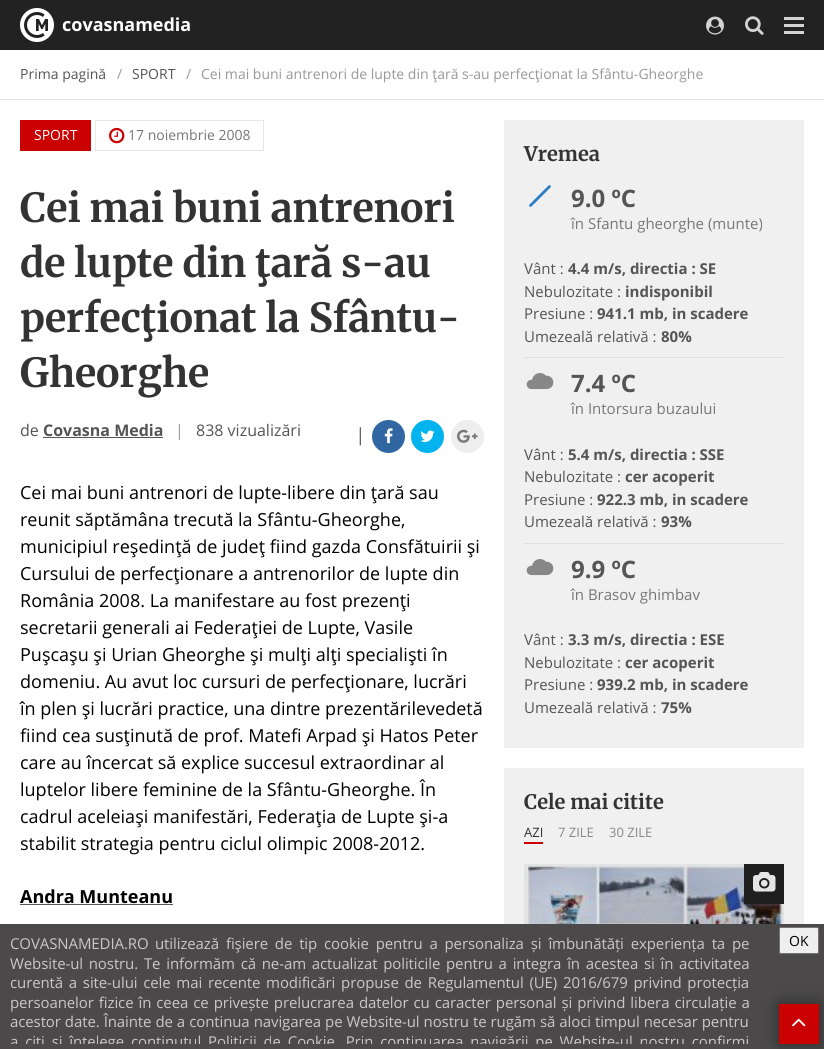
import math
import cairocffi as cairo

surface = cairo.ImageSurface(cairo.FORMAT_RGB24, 824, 1049)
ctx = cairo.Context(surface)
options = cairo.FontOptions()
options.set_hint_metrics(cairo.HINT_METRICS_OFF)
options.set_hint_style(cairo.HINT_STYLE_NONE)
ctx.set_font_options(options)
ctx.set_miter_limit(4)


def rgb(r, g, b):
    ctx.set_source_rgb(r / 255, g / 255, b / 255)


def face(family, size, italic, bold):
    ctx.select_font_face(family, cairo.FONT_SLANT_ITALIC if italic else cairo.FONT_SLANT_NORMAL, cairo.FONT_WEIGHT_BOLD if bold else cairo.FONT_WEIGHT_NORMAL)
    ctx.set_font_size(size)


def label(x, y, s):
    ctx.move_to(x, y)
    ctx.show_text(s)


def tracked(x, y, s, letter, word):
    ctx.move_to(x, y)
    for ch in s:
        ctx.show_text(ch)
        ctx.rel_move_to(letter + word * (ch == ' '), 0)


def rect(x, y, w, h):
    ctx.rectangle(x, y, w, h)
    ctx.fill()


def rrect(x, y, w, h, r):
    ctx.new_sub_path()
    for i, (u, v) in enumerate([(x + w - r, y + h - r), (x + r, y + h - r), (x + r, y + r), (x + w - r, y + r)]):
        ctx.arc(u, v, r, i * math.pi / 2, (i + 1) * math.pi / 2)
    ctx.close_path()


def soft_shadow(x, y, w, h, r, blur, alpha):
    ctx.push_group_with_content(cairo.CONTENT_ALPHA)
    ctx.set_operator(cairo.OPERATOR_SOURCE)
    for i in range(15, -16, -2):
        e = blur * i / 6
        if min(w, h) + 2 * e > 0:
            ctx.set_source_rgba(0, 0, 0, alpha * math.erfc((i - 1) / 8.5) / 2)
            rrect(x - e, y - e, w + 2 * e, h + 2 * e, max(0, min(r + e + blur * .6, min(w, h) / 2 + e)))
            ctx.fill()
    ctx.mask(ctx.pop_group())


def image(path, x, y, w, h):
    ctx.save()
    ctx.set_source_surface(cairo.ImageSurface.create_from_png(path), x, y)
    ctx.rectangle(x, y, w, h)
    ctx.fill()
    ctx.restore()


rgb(255, 255, 255)
ctx.paint()
rgb(34, 34, 34)
rect(0, 0, 824, 50)
image('image0.png', 20, 8, 34, 34)
face('Open Sans', 18, 0, 1)
rgb(255, 255, 255)
label(62, 31, 'covasnamedia')
image('image1.png', 706, 16, 18, 19)
image('image2.png', 745, 16, 19, 19)
rgb(211, 211, 211)
rect(784, 17, 20, 3)
rect(784, 24, 20, 3)
rect(784, 31, 20, 3)
rgb(230, 230, 230)
rect(0, 99, 824, 1)
face('Open Sans', 14, 0, 0)
rgb(85, 85, 85)
label(20, 79, 'Prima pagină')
rgb(153, 153, 153)
label(117, 79, '/')
rgb(85, 85, 85)
label(132, 79, 'SPORT')
rgb(153, 153, 153)
label(186, 79, '/')
label(201, 79, 'Cei mai buni antrenori de lupte din ţară s-au perfecţionat la Sfântu-Gheorghe')
rgb(203, 0, 0)
rect(20, 120, 71, 31)
rgb(255, 255, 255)
label(34, 140, 'SPORT')
ctx.rectangle(95.5, 120.5, 168, 30)
rgb(230, 230, 230)
ctx.set_line_width(1)
ctx.stroke()
image('image3.png', 109, 127, 16, 17)
rgb(119, 119, 119)
label(128, 140, '17 noiembrie 2008')
face('Merriweather', 40, 0, 1)
rgb(51, 51, 51)
label(20, 222, 'Cei mai buni antrenori')
label(20, 277, 'de lupte din ţară s-au')
label(20, 332, 'perfecţionat la Sfântu-')
label(20, 387, 'Gheorghe')
face('Open Sans', 16, 0, 0)
rgb(85, 85, 85)
label(20, 436, 'de')
face('Open Sans', 16, 0, 1)
label(43, 436, 'Covasna Media')
rect(43, 437, 120, 1)
face('Open Sans', 16, 0, 0)
rgb(153, 153, 153)
label(175, 436, '|')
rgb(85, 85, 85)
label(196, 436, '838 vizualizări')
face('Open Sans', 18, 1, 0)
label(355, 441, '|')
rgb(48, 103, 163)
ctx.new_path()
ctx.arc(388.5, 436.5, 16.5, 0, 2 * math.pi)
ctx.fill()
image('image4.png', 384, 428, 9, 16)
rgb(3, 179, 238)
ctx.arc(427.5, 436.5, 16.5, 0, 2 * math.pi)
ctx.fill()
image('image5.png', 420, 430, 15, 12)
rgb(238, 238, 238)
ctx.arc(467.5, 436.5, 16.5, 0, 2 * math.pi)
ctx.fill()
image('image6.png', 457, 429, 21, 14)
face('Open Sans', 18, 0, 0)
rgb(0, 0, 0)
label(20, 499, 'Cei mai buni antrenori de lupte-libere din ţară sau')
label(20, 526, 'reunit săptămâna trecută la Sfântu-Gheorghe,')
label(20, 553, 'municipiul reşedinţă de judeţ fiind gazda Consfătuirii şi')
label(20, 580, 'Cursului de perfecţionare a antrenorilor de lupte din')
label(20, 607, 'România 2008. La manifestare au fost prezenţi')
label(20, 634, 'secretarii generali ai Federaţiei de Lupte, Vasile')
label(20, 661, 'Puşcaşu şi Urian Gheorghe şi mulţi alţi specialişti în')
label(20, 688, 'domeniu. Au avut loc cursuri de perfecţionare, lucrări')
label(20, 715, 'în plen şi lucrări practice, una dintre prezentărilevedetă')
label(20, 742, 'fiind cea susţinută de prof. Matefi Arpad şi Hatos Peter')
label(20, 769, 'care au încercat să explice succesul extraordinar al')
label(20, 796, 'luptelor libere feminine de la Sfântu-Gheorghe. În')
label(20, 823, 'cadrul aceleiaşi manifestări, Federaţia de Lupte şi-a')
label(20, 850, 'stabilit strategia pentru ciclul olimpic 2008-2012.')
face('Open Sans', 18, 0, 1)
label(20, 903, 'Andra Munteanu')
rgb(85, 85, 85)
rect(20, 904, 153, 1)
rgb(240, 240, 240)
rect(504, 120, 300, 628)
face('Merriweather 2', 20, 0, 1)
rgb(51, 51, 51)
label(524, 161, 'Vremea')
image('image7.png', 529, 185, 22, 22)
face('Open Sans', 24, 0, 1)
rgb(85, 85, 85)
label(571, 207, '9.0 ºC')
face('Open Sans', 15, 0, 0)
rgb(119, 119, 119)
label(571, 229, 'în Sfantu gheorghe (munte)')
rgb(223, 223, 223)
rect(524, 357, 260, 1)
rgb(85, 85, 85)
label(524, 274, 'Vânt :')
face('Open Sans', 15, 0, 1)
label(568, 274, '4.4 m/s, directia : SE')
face('Open Sans', 15, 0, 0)
label(524, 297, 'Nebulozitate :')
face('Open Sans', 15, 0, 1)
label(625, 297, 'indisponibil')
face('Open Sans', 15, 0, 0)
label(524, 319, 'Presiune :')
face('Open Sans', 15, 0, 1)
label(597, 319, '941.1 mb, in scadere')
face('Open Sans', 15, 0, 0)
label(524, 342, 'Umezeală relativă :')
face('Open Sans', 15, 0, 1)
label(661, 342, '80%')
image('image8.png', 526, 373, 28, 17)
face('Open Sans', 24, 0, 1)
label(571, 392, '7.4 ºC')
face('Open Sans', 15, 0, 0)
rgb(119, 119, 119)
label(571, 414, 'în Intorsura buzaului')
rgb(223, 223, 223)
rect(524, 543, 260, 1)
rgb(85, 85, 85)
label(524, 460, 'Vânt :')
face('Open Sans', 15, 0, 1)
label(568, 460, '5.4 m/s, directia : SSE')
face('Open Sans', 15, 0, 0)
label(524, 482, 'Nebulozitate :')
face('Open Sans', 15, 0, 1)
label(625, 482, 'cer acoperit')
face('Open Sans', 15, 0, 0)
label(524, 505, 'Presiune :')
face('Open Sans', 15, 0, 1)
label(597, 505, '922.3 mb, in scadere')
face('Open Sans', 15, 0, 0)
label(524, 527, 'Umezeală relativă :')
face('Open Sans', 15, 0, 1)
label(661, 527, '93%')
image('image8.png', 526, 559, 28, 17)
face('Open Sans', 24, 0, 1)
label(571, 578, '9.9 ºC')
face('Open Sans', 15, 0, 0)
rgb(119, 119, 119)
label(571, 600, 'în Brasov ghimbav')
rgb(85, 85, 85)
label(524, 645, 'Vânt :')
face('Open Sans', 15, 0, 1)
label(568, 645, '3.3 m/s, directia : ESE')
face('Open Sans', 15, 0, 0)
label(524, 668, 'Nebulozitate :')
face('Open Sans', 15, 0, 1)
label(625, 668, 'cer acoperit')
face('Open Sans', 15, 0, 0)
label(524, 690, 'Presiune :')
face('Open Sans', 15, 0, 1)
label(597, 690, '939.2 mb, in scadere')
face('Open Sans', 15, 0, 0)
label(524, 713, 'Umezeală relativă :')
face('Open Sans', 15, 0, 1)
label(661, 713, '75%')
rgb(240, 240, 240)
rect(504, 768, 300, 156)
face('Merriweather 2', 20, 0, 1)
rgb(51, 51, 51)
label(524, 809, 'Cele mai citite')
rgb(203, 0, 0)
rect(524, 842, 19, 2)
face('Open Sans', 13, 0, 0)
rgb(51, 51, 51)
label(524, 837, 'AZI')
rgb(136, 136, 136)
label(558, 837, '7 ZILE')
label(609, 837, '30 ZILE')
image('image9.png', 524, 864, 260, 60)
rgb(34, 34, 34)
rect(744, 864, 40, 40)
image('image10.png', 753, 872, 23, 20)
gradient = cairo.LinearGradient(654, 864, 654, 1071)
gradient.add_color_stop_rgba(0.55, 0, 0, 0, 0.1)
gradient.add_color_stop_rgba(1, 0, 0, 0, 0.5)
ctx.set_source(gradient)
rect(524, 864, 260, 60)
rgb(75, 73, 73)
rect(0, 924, 824, 125)
face('Open Sans', 15, 0, 0)
rgb(201, 200, 200)
tracked(10, 949, 'COVASNAMEDIA.RO', -0.1, 0)
tracked(155, 949, 'utilizează fişiere de tip cookie pentru a personaliza și îmbunătăți experiența ta pe', -0.1, 3.1)
tracked(10, 969, 'Website-ul nostru. Te informăm că ne-am actualizat politicile pentru a integra în acestea si în activitatea', -0.1, 2)
tracked(10, 988, 'curentă a site-ului cele mai recente modificări propuse de Regulamentul (UE) 2016/679 privind protecția', -0.1, 2)
tracked(10, 1008, 'persoanelor fizice în ceea ce privește prelucrarea datelor cu caracter personal și privind libera circulație a', -0.1, 1.25)
tracked(10, 1027, 'acestor date. Înainte de a continua navigarea pe Website-ul nostru te rugăm să aloci timpul necesar pentru', -0.1, 0.25)
ctx.save()
ctx.rectangle(10, 934, 740, 110)
ctx.clip()
tracked(10, 1047, 'a citi și înțelege conținutul Politicii de Cookie. Prin continuarea navigării pe Website-ul nostru confirmi', -0.1, 3.1)
ctx.restore()
rgb(239, 239, 239)
rrect(779.5, 927.5, 39, 26, 1.5)
ctx.fill_preserve()
rgb(118, 118, 118)
ctx.stroke()
face('Open Sans', 14, 0, 0)
rgb(0, 0, 0)
label(789, 946, 'OK')
rgb(0, 0, 0)
soft_shadow(779, 1004, 40, 40, 0, 7.5, 0.45)
rgb(203, 0, 0)
rect(779, 1004, 40, 40)
image('image11.png', 792, 1018, 14, 9)
surface.write_to_png('render.png')
